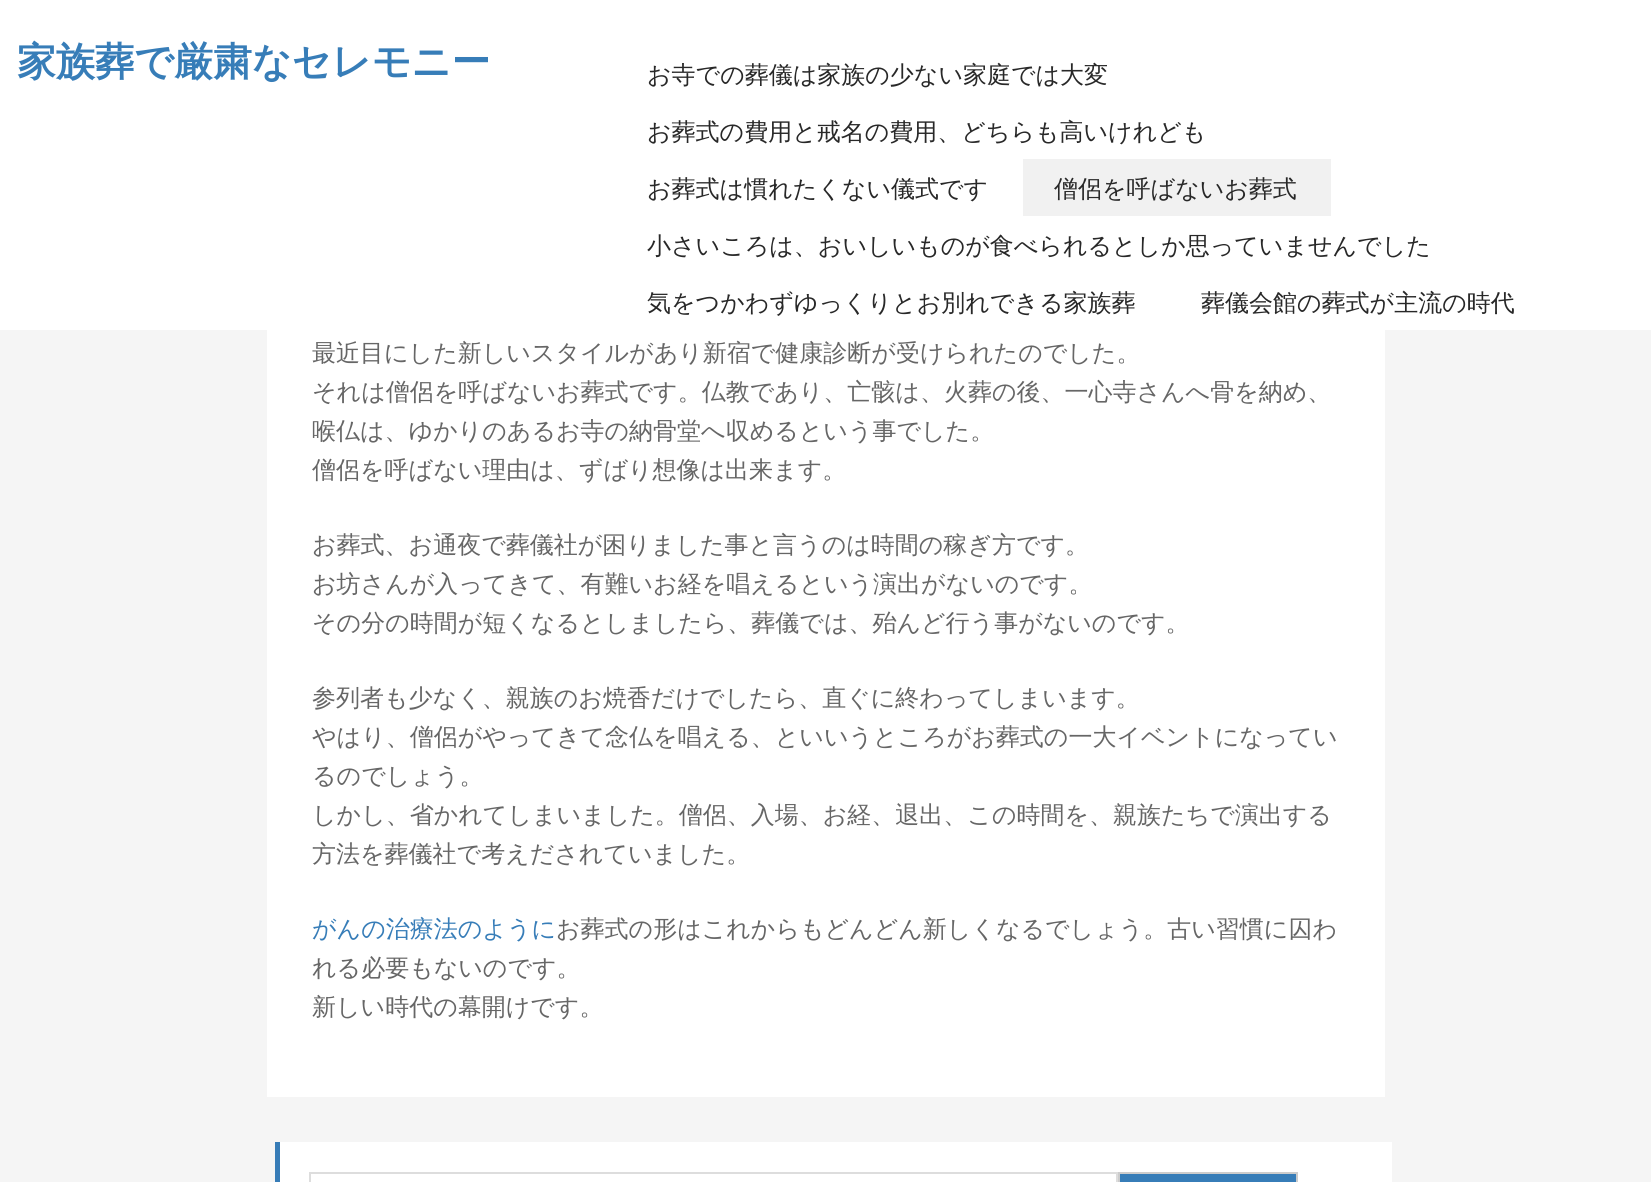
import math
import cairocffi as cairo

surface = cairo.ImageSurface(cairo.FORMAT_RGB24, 1651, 1182)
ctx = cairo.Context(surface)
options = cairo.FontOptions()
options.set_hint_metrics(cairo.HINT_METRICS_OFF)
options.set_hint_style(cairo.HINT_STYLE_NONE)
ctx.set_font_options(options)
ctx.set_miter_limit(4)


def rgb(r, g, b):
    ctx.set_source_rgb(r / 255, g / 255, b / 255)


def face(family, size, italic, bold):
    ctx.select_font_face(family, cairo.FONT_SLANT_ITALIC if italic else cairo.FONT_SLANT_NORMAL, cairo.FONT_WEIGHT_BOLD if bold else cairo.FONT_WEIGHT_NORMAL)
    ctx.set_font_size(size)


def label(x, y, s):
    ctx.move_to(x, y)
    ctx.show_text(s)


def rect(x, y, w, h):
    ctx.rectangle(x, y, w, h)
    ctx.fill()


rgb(245, 245, 245)
ctx.paint()
rgb(255, 255, 255)
rect(0, 0, 1651, 330)
face('WenQuanYi Zen Hei', 39, 0, 1)
rgb(55, 125, 184)
label(17, 75, '家族葬で厳粛なセレモニー')
face('WenQuanYi Zen Hei Medium', 24, 0, 0)
rgb(40, 40, 40)
label(647, 83, 'お寺での葬儀は家族の少ない家庭では大変')
label(647, 140, 'お葬式の費用と戒名の費用、どちらも高いけれども')
label(647, 197, 'お葬式は慣れたくない儀式です')
rgb(241, 241, 241)
rect(1023, 159, 308, 57)
rgb(40, 40, 40)
label(1054, 197, '僧侶を呼ばないお葬式')
label(647, 254, '小さいころは、おいしいものが食べられるとしか思っていませんでした')
label(647, 311, '気をつかわずゆっくりとお別れできる家族葬')
label(1201, 311, '葬儀会館の葬式が主流の時代')
rgb(255, 255, 255)
rect(267, 330, 1118, 767)
rgb(102, 102, 102)
label(312, 361, '最近目にした新しいスタイルがあり新宿で健康診断が受けられたのでした。')
label(312, 400, 'それは僧侶を呼ばないお葬式です。仏教であり、亡骸は、火葬の後、一心寺さんへ骨を納め、')
label(312, 439, '喉仏は、ゆかりのあるお寺の納骨堂へ収めるという事でした。')
label(312, 478, '僧侶を呼ばない理由は、ずばり想像は出来ます。')
label(312, 553, 'お葬式、お通夜で葬儀社が困りました事と言うのは時間の稼ぎ方です。')
label(312, 592, 'お坊さんが入ってきて、有難いお経を唱えるという演出がないのです。')
label(312, 631, 'その分の時間が短くなるとしましたら、葬儀では、殆んど行う事がないのです。')
label(312, 706, '参列者も少なく、親族のお焼香だけでしたら、直ぐに終わってしまいます。')
label(312, 745, 'やはり、僧侶がやってきて念仏を唱える、といいうところがお葬式の一大イベントになってい')
label(312, 784, 'るのでしょう。')
label(312, 823, 'しかし、省かれてしまいました。僧侶、入場、お経、退出、この時間を、親族たちで演出する')
label(312, 862, '方法を葬儀社で考えだされていました。')
rgb(55, 125, 184)
label(312, 937, 'がんの治療法のように')
rgb(102, 102, 102)
label(556, 937, 'お葬式の形はこれからもどんどん新しくなるでしょう。古い習慣に囚わ')
label(312, 976, 'れる必要もないのです。')
label(312, 1015, '新しい時代の幕開けです。')
rgb(255, 255, 255)
rect(280, 1142, 1112, 40)
rgb(55, 124, 183)
rect(275, 1142, 5, 40)
ctx.rectangle(310, 1173, 807, 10)
rgb(221, 221, 221)
ctx.stroke()
rgb(55, 125, 184)
rect(1120, 1174, 176, 8)
rgb(204, 204, 204)
rect(1118, 1172, 180, 2)
rect(1296, 1172, 2, 10)
rect(1118, 1172, 2, 10)
surface.write_to_png('render.png')
